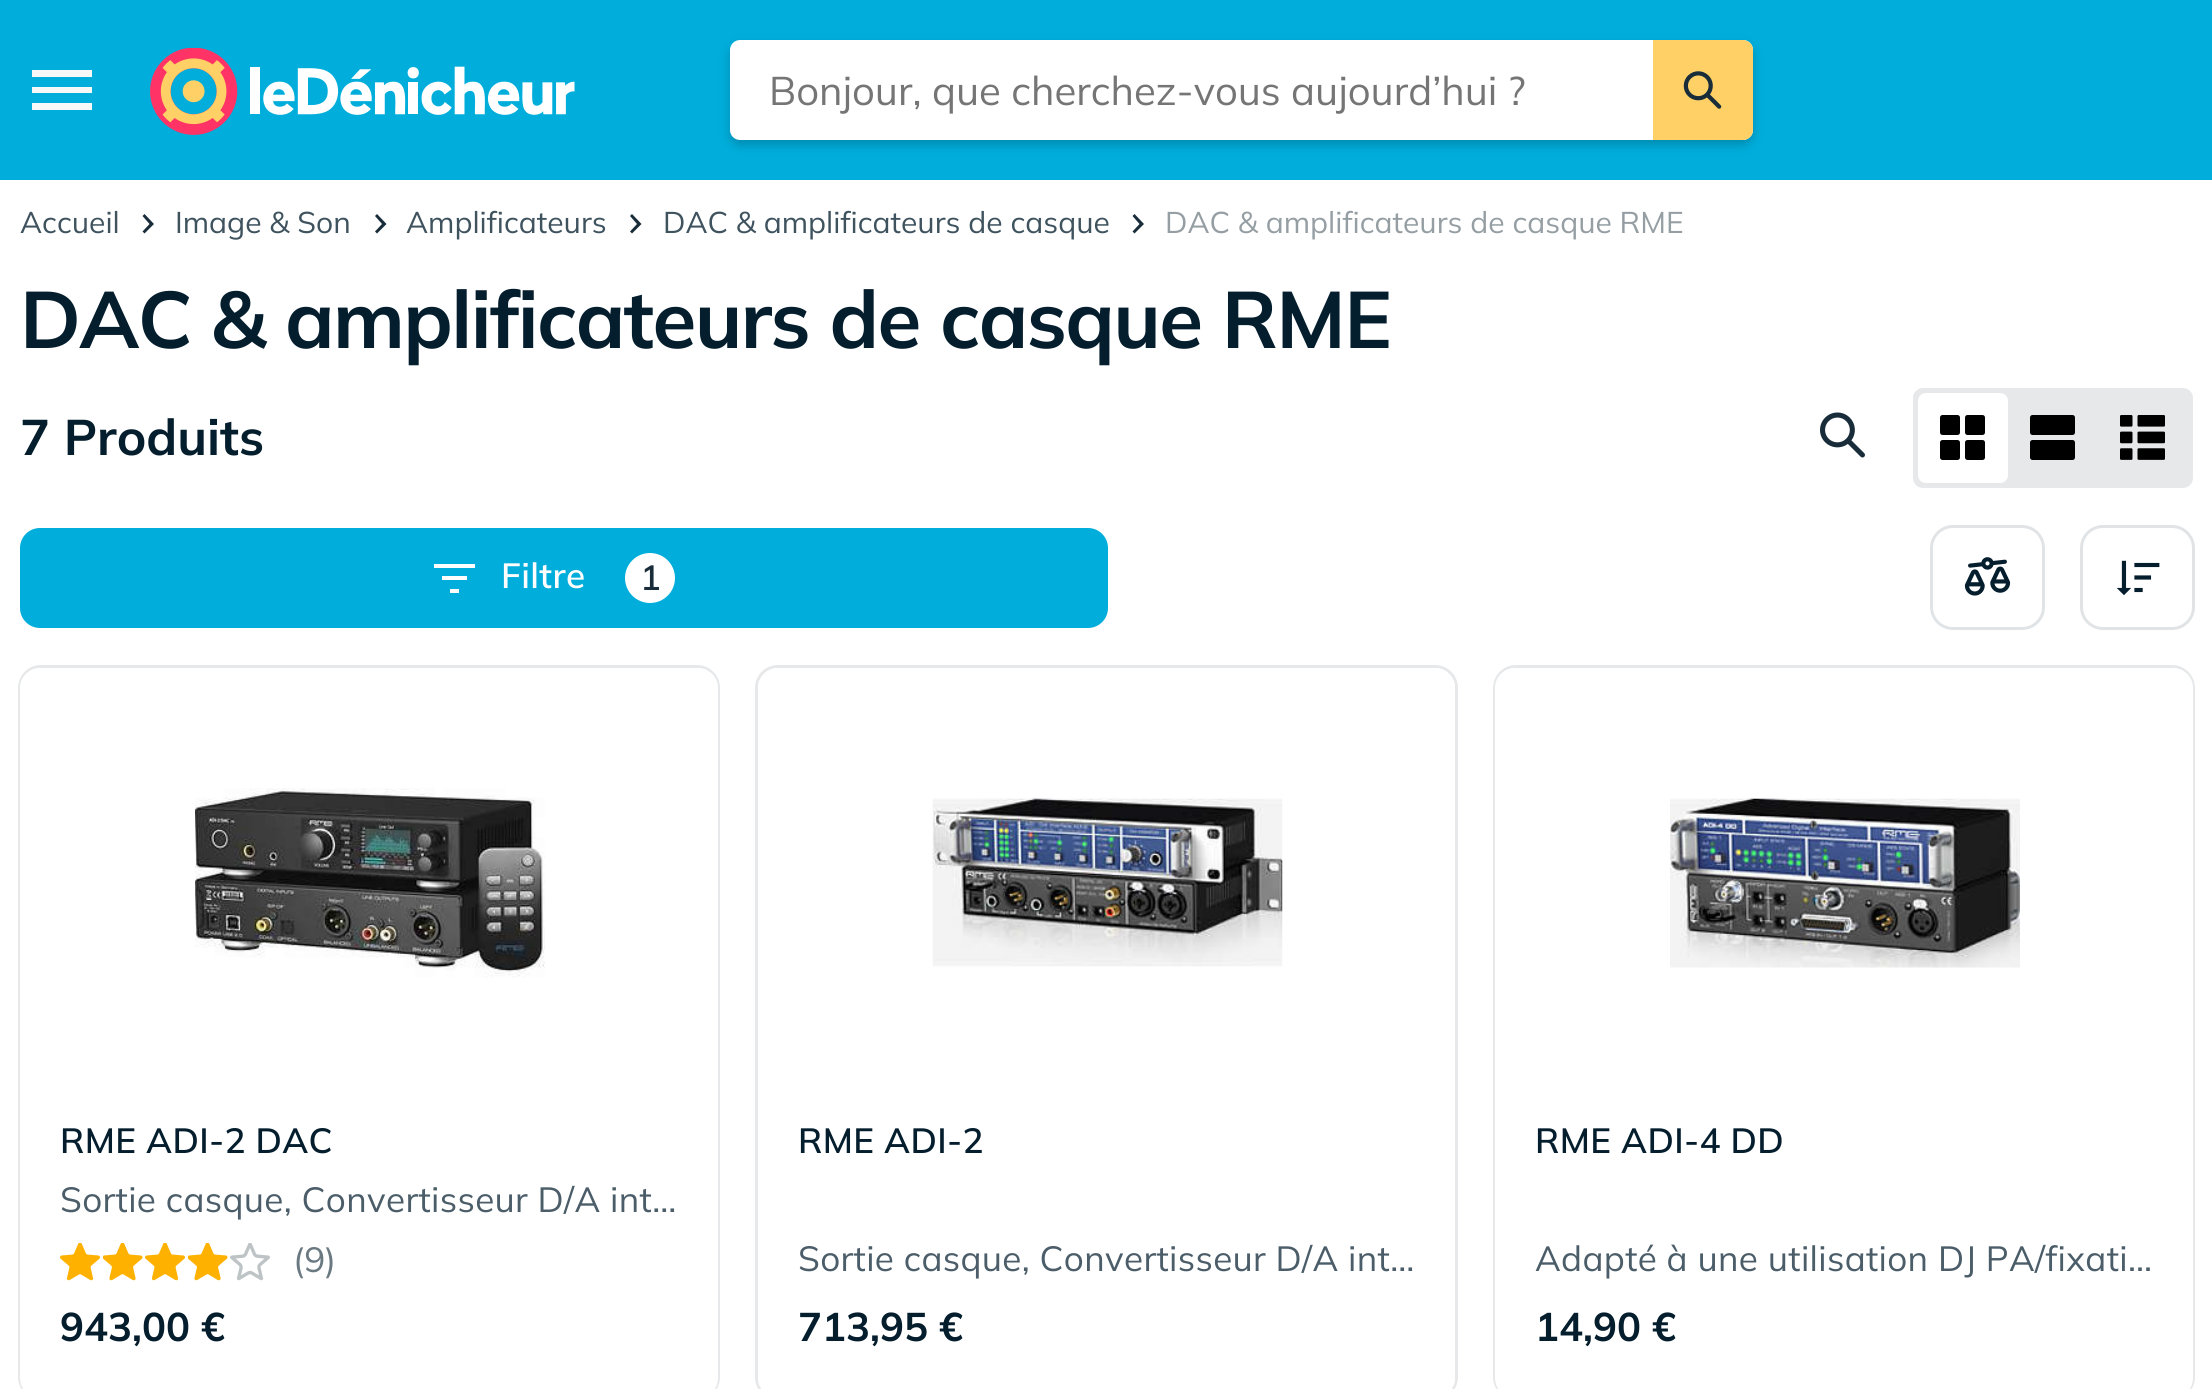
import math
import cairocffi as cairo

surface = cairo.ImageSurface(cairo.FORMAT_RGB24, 2212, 1389)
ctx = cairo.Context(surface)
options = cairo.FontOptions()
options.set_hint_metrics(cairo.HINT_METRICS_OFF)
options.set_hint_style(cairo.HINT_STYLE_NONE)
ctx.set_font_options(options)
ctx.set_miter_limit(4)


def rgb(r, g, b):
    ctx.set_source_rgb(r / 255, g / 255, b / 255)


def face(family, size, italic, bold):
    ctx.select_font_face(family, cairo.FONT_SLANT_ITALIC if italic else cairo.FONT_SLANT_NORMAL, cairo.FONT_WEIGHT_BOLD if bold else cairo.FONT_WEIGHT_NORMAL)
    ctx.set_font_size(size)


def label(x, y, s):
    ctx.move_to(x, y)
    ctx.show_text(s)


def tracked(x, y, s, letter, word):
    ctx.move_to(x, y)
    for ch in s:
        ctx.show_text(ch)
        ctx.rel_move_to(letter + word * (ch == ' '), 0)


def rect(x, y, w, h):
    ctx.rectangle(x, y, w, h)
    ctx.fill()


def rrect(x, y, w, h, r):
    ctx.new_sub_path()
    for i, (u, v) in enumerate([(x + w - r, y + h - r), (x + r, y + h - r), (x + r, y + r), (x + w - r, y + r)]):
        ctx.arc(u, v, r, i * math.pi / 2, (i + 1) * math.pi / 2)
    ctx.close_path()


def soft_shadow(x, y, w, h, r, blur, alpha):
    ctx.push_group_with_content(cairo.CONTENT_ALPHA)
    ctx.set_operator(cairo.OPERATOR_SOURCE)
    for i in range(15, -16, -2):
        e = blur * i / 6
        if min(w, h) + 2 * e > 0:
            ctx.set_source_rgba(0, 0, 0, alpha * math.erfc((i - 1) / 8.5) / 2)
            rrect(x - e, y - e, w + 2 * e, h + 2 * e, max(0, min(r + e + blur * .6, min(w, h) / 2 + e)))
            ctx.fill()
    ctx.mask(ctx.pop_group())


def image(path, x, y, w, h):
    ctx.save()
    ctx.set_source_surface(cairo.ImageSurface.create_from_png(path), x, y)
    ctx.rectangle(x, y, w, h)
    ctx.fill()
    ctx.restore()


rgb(255, 255, 255)
ctx.paint()
rgb(0, 173, 219)
rect(0, 0, 2212, 180)
rgb(247, 248, 248)
ctx.set_fill_rule(cairo.FILL_RULE_EVEN_ODD)
ctx.new_path()
ctx.move_to(32, 110)
ctx.line_to(92, 110)
ctx.line_to(92, 103)
ctx.line_to(32, 103)
ctx.close_path()
ctx.move_to(32, 93)
ctx.line_to(92, 93)
ctx.line_to(92, 87)
ctx.line_to(32, 87)
ctx.close_path()
ctx.move_to(32, 70)
ctx.line_to(32, 77)
ctx.line_to(92, 77)
ctx.line_to(92, 70)
ctx.close_path()
ctx.fill()
image('image0.png', 150, 48, 425, 87)
rgb(0, 0, 0)
soft_shadow(730, 45, 1023, 100, 10, 5, 0.2)
rgb(255, 255, 255)
rrect(730, 40, 1023, 100, 10)
ctx.fill()
face('Mulish', 40, 0, 0)
rgb(117, 117, 117)
label(769, 105, 'Bonjour, que cherchez-vous aujourd’hui ?')
rgb(255, 208, 102)
ctx.new_path()
ctx.move_to(1653, 40)
ctx.line_to(1743, 40)
ctx.curve_to(1748.5, 40, 1753, 44.5, 1753, 50)
ctx.line_to(1753, 130)
ctx.curve_to(1753, 135.5, 1748.5, 140, 1743, 140)
ctx.line_to(1653, 140)
ctx.close_path()
ctx.fill()
image('image1.png', 1683, 71, 39, 38)
face('Mulish', 30, 0, 0)
rgb(63, 83, 95)
label(20, 233, 'Accueil')
rgb(24, 44, 57)
ctx.new_path()
ctx.move_to(144.5, 214)
ctx.line_to(154, 224)
ctx.line_to(144.5, 233.5)
ctx.line_to(142.5, 231.5)
ctx.line_to(149.5, 224)
ctx.line_to(142.5, 216)
ctx.close_path()
ctx.fill()
rgb(63, 83, 95)
label(175, 233, 'Image & Son')
rgb(24, 44, 57)
ctx.new_path()
ctx.move_to(377, 214)
ctx.line_to(386.5, 224)
ctx.line_to(377, 233.5)
ctx.line_to(375, 231.5)
ctx.line_to(382, 224)
ctx.line_to(375, 216)
ctx.close_path()
ctx.fill()
rgb(63, 83, 95)
label(406, 233, 'Amplificateurs')
rgb(24, 44, 57)
ctx.new_path()
ctx.move_to(632, 214)
ctx.line_to(641.5, 224)
ctx.line_to(632, 233.5)
ctx.line_to(630, 231.5)
ctx.line_to(637, 224)
ctx.line_to(630, 216)
ctx.close_path()
ctx.fill()
rgb(63, 83, 95)
label(663, 233, 'DAC & amplificateurs de casque')
rgb(24, 44, 57)
ctx.new_path()
ctx.move_to(1134.5, 214)
ctx.line_to(1144, 224)
ctx.line_to(1134.5, 233.5)
ctx.line_to(1132.5, 231.5)
ctx.line_to(1139.5, 224)
ctx.line_to(1132.5, 216)
ctx.close_path()
ctx.fill()
rgb(149, 158, 163)
label(1165, 233, 'DAC & amplificateurs de casque RME')
face('Mulish', 80, 0, 1)
rgb(5, 30, 46)
tracked(20, 348, 'DAC & amplificateurs de casque RME', -1.6, 0)
face('Mulish', 50, 0, 1)
label(20, 455, '7 Produits')
image('image2.png', 1820, 412, 45, 46)
rgb(230, 232, 234)
rrect(1913, 388, 280, 100, 10)
ctx.fill()
rgb(255, 255, 255)
rrect(1918, 393, 90, 90, 8)
ctx.fill()
image('image3.png', 1940, 415, 45, 45)
image('image4.png', 2030, 415, 45, 45)
image('image5.png', 2120, 415, 45, 45)
rgb(0, 173, 219)
rrect(20, 528, 1088, 100, 20)
ctx.fill()
rgb(255, 255, 255)
ctx.new_path()
ctx.move_to(434, 564)
ctx.line_to(475, 564)
ctx.line_to(475, 568)
ctx.line_to(434, 568)
ctx.close_path()
ctx.move_to(442, 580)
ctx.line_to(442, 576)
ctx.line_to(467, 576)
ctx.line_to(467, 580)
ctx.close_path()
ctx.move_to(450, 589)
ctx.line_to(450, 593)
ctx.line_to(459, 593)
ctx.line_to(459, 589)
ctx.close_path()
ctx.fill()
face('Mulish SemiBold', 35, 0, 0)
tracked(501, 588, 'Filtre', 0.35, 0)
ctx.new_path()
ctx.arc(650, 578, 25, 0, 2 * math.pi)
ctx.fill()
rgb(24, 44, 57)
label(640, 590, '1')
rrect(1931.5, 526.5, 112, 102, 21.5)
rgb(225, 228, 230)
ctx.set_line_width(3)
ctx.stroke()
image('image6.png', 1964, 557, 47, 39)
rrect(2081.5, 526.5, 112, 102, 21.5)
ctx.stroke()
image('image7.png', 2116, 560, 44, 36)
rrect(19.5, 666.5, 699, 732, 21.5)
rgb(230, 232, 234)
ctx.stroke()
rgb(255, 255, 255)
rrect(20, 668, 698, 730, 20)
ctx.fill()
image('image8.png', 195, 788, 350, 190)
rgb(5, 30, 46)
tracked(60, 1153, 'RME ADI-2 DAC', 0.35, 0)
face('Mulish', 35, 0, 0)
rgb(75, 93, 105)
tracked(60, 1212, 'Sortie casque, Convertisseur D/A int…', 0.35, 0)
image('image9.png', 60, 1243, 40, 38)
image('image10.png', 103, 1243, 40, 38)
image('image9.png', 145, 1243, 40, 38)
image('image10.png', 188, 1243, 40, 38)
image('image11.png', 230, 1243, 40, 38)
rgb(106, 120, 129)
label(293, 1272, '(9')
label(325, 1272, ')')
face('Mulish', 40, 0, 1)
rgb(5, 30, 46)
label(60, 1341, '943,00 €')
rrect(756.5, 666.5, 700, 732, 21.5)
rgb(230, 232, 234)
ctx.stroke()
rgb(255, 255, 255)
rrect(758, 668, 697, 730, 20)
ctx.fill()
image('image12.png', 932, 797, 351, 170)
face('Mulish SemiBold', 35, 0, 0)
rgb(5, 30, 46)
tracked(798, 1153, 'RME ADI-2', 0.35, 0)
face('Mulish', 35, 0, 0)
rgb(75, 93, 105)
tracked(798, 1271, 'Sortie casque, Convertisseur D/A int…', 0.35, 0)
face('Mulish', 40, 0, 1)
rgb(5, 30, 46)
label(798, 1341, '713,95 €')
rrect(1494.5, 666.5, 699, 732, 21.5)
rgb(230, 232, 234)
ctx.stroke()
rgb(255, 255, 255)
rrect(1495, 668, 698, 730, 20)
ctx.fill()
image('image13.png', 1670, 798, 350, 170)
face('Mulish SemiBold', 35, 0, 0)
rgb(5, 30, 46)
tracked(1535, 1153, 'RME ADI-4 DD', 0.35, 0)
face('Mulish', 35, 0, 0)
rgb(75, 93, 105)
tracked(1535, 1271, 'Adapté à une utilisation DJ PA/fixati…', 0.35, 0)
face('Mulish', 40, 0, 1)
rgb(5, 30, 46)
label(1535, 1341, '14,90 €')
surface.write_to_png('render.png')
